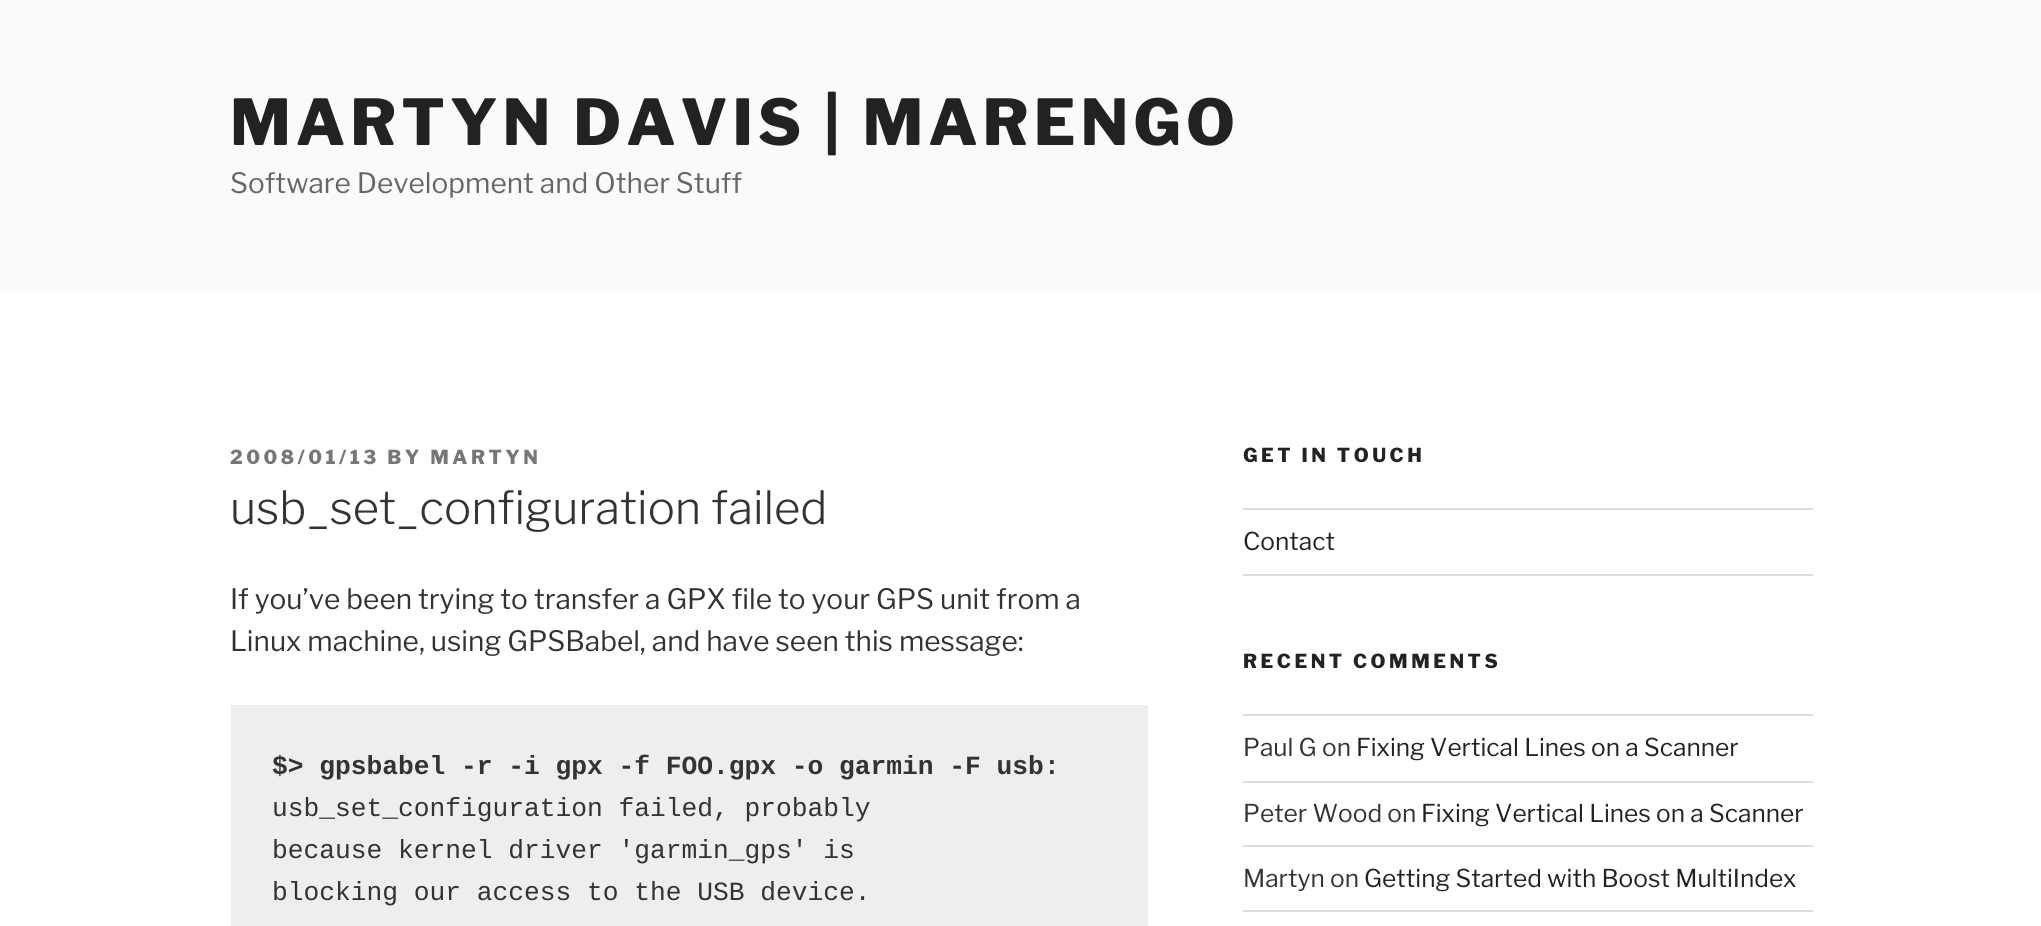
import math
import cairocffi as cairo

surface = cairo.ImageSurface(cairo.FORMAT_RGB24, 2041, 926)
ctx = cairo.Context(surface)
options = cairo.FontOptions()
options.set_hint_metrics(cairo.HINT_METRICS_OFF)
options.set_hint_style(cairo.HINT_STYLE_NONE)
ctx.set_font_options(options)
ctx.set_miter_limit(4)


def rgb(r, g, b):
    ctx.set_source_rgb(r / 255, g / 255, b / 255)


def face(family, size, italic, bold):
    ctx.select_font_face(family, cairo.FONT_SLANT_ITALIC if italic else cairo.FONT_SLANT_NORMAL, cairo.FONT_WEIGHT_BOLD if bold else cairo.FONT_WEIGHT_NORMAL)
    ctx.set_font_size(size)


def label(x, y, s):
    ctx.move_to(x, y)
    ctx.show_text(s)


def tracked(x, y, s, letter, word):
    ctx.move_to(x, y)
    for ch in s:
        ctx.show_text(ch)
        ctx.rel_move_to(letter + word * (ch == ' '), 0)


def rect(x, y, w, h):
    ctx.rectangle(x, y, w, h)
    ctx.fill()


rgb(255, 255, 255)
ctx.paint()
rgb(250, 250, 250)
rect(0, 0, 2041, 289)
face('Libre Franklin Thin', 63, 0, 0)
rgb(34, 34, 34)
tracked(230, 145, 'MARTYN DAVIS | MARENGO', 5, 0)
face('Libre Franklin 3 Thin', 28, 0, 0)
rgb(102, 102, 102)
label(230, 193, 'Software Development and Other Stuff')
face('Libre Franklin Thin', 19.25, 0, 0)
rgb(118, 118, 118)
tracked(230, 464, '2008/01/13 BY MARTYN', 3.5, 0)
face('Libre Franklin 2 Thin', 45.5, 0, 0)
rgb(51, 51, 51)
label(230, 524, 'usb_set_configuration failed')
face('Libre Franklin 3 Thin', 28, 0, 0)
label(230, 609, 'If you’ve been trying to transfer a GPX file to your GPS unit from a')
label(230, 651, 'Linux machine, using GPSBabel, and have seen this message:')
rgb(238, 238, 238)
rect(231, 705, 917, 221)
face('Liberation Mono', 26.25, 0, 1)
rgb(51, 51, 51)
label(272, 774, '$> gpsbabel -r -i gpx -f FOO.gpx -o garmin -F usb:')
face('Liberation Mono', 26.25, 0, 0)
label(272, 816, 'usb_set_configuration failed, probably')
label(272, 858, 'because kernel driver \'garmin_gps\' is')
label(272, 900, 'blocking our access to the USB device.')
face('Libre Franklin Thin', 19.25, 0, 0)
rgb(34, 34, 34)
tracked(1243, 462, 'GET IN TOUCH', 3.5, 0)
rgb(221, 221, 221)
rect(1243, 508, 570, 2)
rect(1243, 574, 570, 2)
face('Libre Franklin 3 Thin', 24.5, 0, 0)
rgb(34, 34, 34)
label(1243, 550, 'Contact')
face('Libre Franklin Thin', 19.25, 0, 0)
tracked(1243, 668, 'RECENT COMMENTS', 3.5, 0)
rgb(221, 221, 221)
rect(1243, 714, 570, 2)
rect(1243, 781, 570, 2)
face('Libre Franklin 3 Thin', 24.5, 0, 0)
rgb(51, 51, 51)
label(1243, 756, 'Paul G on')
rgb(34, 34, 34)
label(1356, 756, 'Fixing Vertical Lines on a Scanner')
rgb(221, 221, 221)
rect(1243, 845, 570, 2)
rgb(51, 51, 51)
label(1243, 822, 'Peter Wood on')
rgb(34, 34, 34)
label(1421, 822, 'Fixing Vertical Lines on a Scanner')
rgb(221, 221, 221)
rect(1243, 910, 570, 2)
rgb(51, 51, 51)
label(1243, 887, 'Martyn on')
rgb(34, 34, 34)
label(1364, 887, 'Getting Started with Boost MultiIndex')
surface.write_to_png('render.png')
